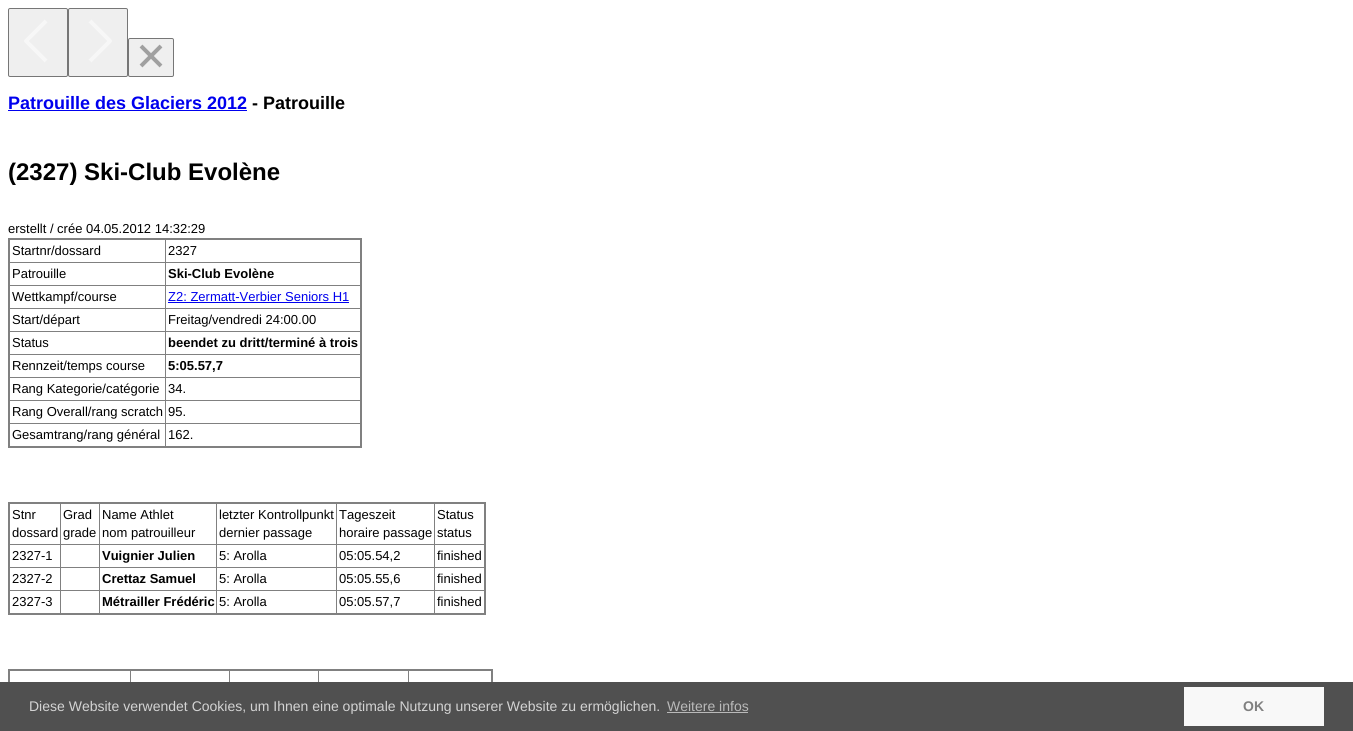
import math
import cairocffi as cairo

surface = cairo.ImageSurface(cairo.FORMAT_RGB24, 1353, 731)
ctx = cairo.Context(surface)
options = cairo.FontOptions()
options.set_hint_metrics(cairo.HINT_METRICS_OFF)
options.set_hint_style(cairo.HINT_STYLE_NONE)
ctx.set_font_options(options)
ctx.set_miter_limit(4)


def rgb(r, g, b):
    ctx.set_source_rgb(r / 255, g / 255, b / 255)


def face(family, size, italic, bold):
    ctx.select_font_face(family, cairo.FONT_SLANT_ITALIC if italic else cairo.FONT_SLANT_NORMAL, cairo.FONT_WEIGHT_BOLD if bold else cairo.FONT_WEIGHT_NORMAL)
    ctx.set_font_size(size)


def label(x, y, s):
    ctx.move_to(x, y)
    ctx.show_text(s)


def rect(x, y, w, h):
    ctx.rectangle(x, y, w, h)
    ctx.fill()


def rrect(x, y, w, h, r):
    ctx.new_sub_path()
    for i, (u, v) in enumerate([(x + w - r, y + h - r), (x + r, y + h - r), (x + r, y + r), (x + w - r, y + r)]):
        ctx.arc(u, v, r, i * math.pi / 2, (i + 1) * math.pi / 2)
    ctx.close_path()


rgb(255, 255, 255)
ctx.paint()
rgb(239, 239, 239)
rrect(8.5, 8.5, 59, 68, 1.5)
ctx.fill_preserve()
rgb(118, 118, 118)
ctx.set_line_width(1)
ctx.stroke()
ctx.new_path()
ctx.move_to(46, 21)
ctx.line_to(26, 41)
ctx.line_to(46, 61)
rgb(247, 247, 247)
ctx.set_line_width(4)
ctx.set_line_join(cairo.LINE_JOIN_ROUND)
ctx.stroke()
rgb(239, 239, 239)
rrect(68.5, 8.5, 59, 68, 1.5)
ctx.fill_preserve()
rgb(118, 118, 118)
ctx.set_line_width(1)
ctx.set_line_join(cairo.LINE_JOIN_MITER)
ctx.stroke()
ctx.new_path()
ctx.move_to(90, 21)
ctx.line_to(110, 41)
ctx.line_to(90, 61)
rgb(247, 247, 247)
ctx.set_line_width(4)
ctx.set_line_join(cairo.LINE_JOIN_ROUND)
ctx.stroke()
rgb(239, 239, 239)
rrect(128.5, 38.5, 45, 38, 1.5)
ctx.fill_preserve()
rgb(118, 118, 118)
ctx.set_line_width(1)
ctx.set_line_join(cairo.LINE_JOIN_MITER)
ctx.stroke()
ctx.new_path()
ctx.move_to(141, 46)
ctx.line_to(161, 66)
ctx.move_to(141, 66)
ctx.line_to(161, 46)
rgb(160, 160, 160)
ctx.set_line_width(4)
ctx.stroke()
face('Liberation Sans', 18, 0, 1)
rgb(0, 0, 238)
label(8, 109, 'Patrouille des Glaciers 2012')
rect(8, 110, 239, 1)
rgb(0, 0, 0)
label(252, 109, '- Patrouille')
face('Liberation Sans', 24, 0, 1)
label(8, 180, '(2327) Ski-Club Evolène')
face('Liberation Sans', 13, 0, 0)
label(8, 233, 'erstellt / crée 04.05.2012 14:32:29')
rgb(128, 128, 128)
rect(165, 262, 197, 1)
rect(165, 285, 197, 1)
rect(165, 308, 197, 1)
rect(165, 331, 197, 1)
rect(165, 354, 197, 1)
rect(165, 377, 197, 1)
rect(165, 400, 197, 1)
rect(165, 423, 197, 1)
rect(165, 423, 1, 25)
rect(9, 423, 157, 1)
rect(165, 400, 1, 24)
rect(9, 400, 157, 1)
rect(165, 377, 1, 24)
rect(9, 377, 157, 1)
rect(165, 354, 1, 24)
rect(9, 354, 157, 1)
rect(165, 331, 1, 24)
rect(9, 331, 157, 1)
rect(165, 308, 1, 24)
rect(9, 308, 157, 1)
rect(165, 285, 1, 24)
rect(9, 285, 157, 1)
rect(165, 262, 1, 24)
rect(9, 262, 157, 1)
rect(165, 239, 1, 24)
rect(8, 238, 354, 2)
rect(360, 238, 2, 210)
rect(8, 446, 354, 2)
rect(8, 238, 2, 210)
rgb(0, 0, 0)
label(12, 255, 'Startnr/dossard')
label(168, 255, '2327')
label(12, 278, 'Patrouille')
face('Liberation Sans', 13, 0, 1)
label(168, 278, 'Ski-Club Evolène')
face('Liberation Sans', 13, 0, 0)
label(12, 301, 'Wettkampf/course')
rgb(0, 0, 238)
label(168, 301, 'Z2: Zermatt-Verbier Seniors H1')
rect(168, 302, 181, 1)
rgb(0, 0, 0)
label(12, 324, 'Start/départ')
label(168, 324, 'Freitag/vendredi 24:00.00')
label(12, 347, 'Status')
face('Liberation Sans', 13, 0, 1)
label(168, 347, 'beendet zu dritt/terminé à trois')
face('Liberation Sans', 13, 0, 0)
label(12, 370, 'Rennzeit/temps course')
face('Liberation Sans', 13, 0, 1)
label(168, 370, '5:05.57,7')
face('Liberation Sans', 13, 0, 0)
label(12, 393, 'Rang Kategorie/catégorie')
label(168, 393, '34.')
label(12, 416, 'Rang Overall/rang scratch')
label(168, 416, '95.')
label(12, 439, 'Gesamtrang/rang général')
label(168, 439, '162.')
rgb(128, 128, 128)
rect(434, 544, 52, 1)
rect(434, 567, 52, 1)
rect(434, 590, 52, 1)
rect(434, 590, 1, 25)
rect(336, 590, 99, 1)
rect(434, 567, 1, 24)
rect(336, 567, 99, 1)
rect(434, 544, 1, 24)
rect(336, 544, 99, 1)
rect(336, 590, 1, 25)
rect(216, 590, 121, 1)
rect(336, 567, 1, 24)
rect(216, 567, 121, 1)
rect(336, 544, 1, 24)
rect(216, 544, 121, 1)
rect(216, 590, 1, 25)
rect(99, 590, 118, 1)
rect(216, 567, 1, 24)
rect(99, 567, 118, 1)
rect(216, 544, 1, 24)
rect(99, 544, 118, 1)
rect(99, 590, 1, 25)
rect(60, 590, 40, 1)
rect(99, 567, 1, 24)
rect(60, 567, 40, 1)
rect(99, 544, 1, 24)
rect(60, 544, 40, 1)
rect(60, 590, 1, 25)
rect(9, 590, 52, 1)
rect(60, 567, 1, 24)
rect(9, 567, 52, 1)
rect(60, 544, 1, 24)
rect(9, 544, 52, 1)
rect(60, 503, 1, 42)
rect(99, 503, 1, 42)
rect(216, 503, 1, 42)
rect(336, 503, 1, 42)
rect(434, 503, 1, 42)
rect(8, 502, 478, 2)
rect(484, 502, 2, 113)
rect(8, 613, 478, 2)
rect(8, 502, 2, 113)
rgb(0, 0, 0)
label(12, 519, 'Stnr')
label(12, 537, 'dossard')
label(63, 519, 'Grad')
label(63, 537, 'grade')
label(102, 519, 'Name Athlet')
label(102, 537, 'nom patrouilleur')
label(219, 519, 'letzter Kontrollpunkt')
label(219, 537, 'dernier passage')
label(339, 519, 'Tageszeit')
label(339, 537, 'horaire passage')
label(437, 519, 'Status')
label(437, 537, 'status')
label(12, 560, '2327-1')
face('Liberation Sans', 13, 0, 1)
label(102, 560, 'Vuignier Julien')
face('Liberation Sans', 13, 0, 0)
label(219, 560, '5: Arolla')
label(339, 560, '05:05.54,2')
label(437, 560, 'finished')
label(12, 583, '2327-2')
face('Liberation Sans', 13, 0, 1)
label(102, 583, 'Crettaz Samuel')
face('Liberation Sans', 13, 0, 0)
label(219, 583, '5: Arolla')
label(339, 583, '05:05.55,6')
label(437, 583, 'finished')
label(12, 606, '2327-3')
face('Liberation Sans', 13, 0, 1)
label(102, 606, 'Métrailler Frédéric')
face('Liberation Sans', 13, 0, 0)
label(219, 606, '5: Arolla')
label(339, 606, '05:05.57,7')
label(437, 606, 'finished')
rgb(128, 128, 128)
rect(130, 670, 1, 12)
rect(229, 670, 1, 12)
rect(318, 670, 1, 12)
rect(408, 670, 1, 12)
rect(8, 669, 485, 2)
rect(491, 669, 2, 13)
rect(8, 669, 2, 13)
rgb(80, 80, 80)
rect(0, 682, 1353, 49)
face('Liberation Sans', 14, 0, 0)
rgb(211, 211, 211)
label(29, 711, 'Diese Website verwendet Cookies, um Ihnen eine optimale Nutzung unserer Website zu ermöglichen.')
rgb(185, 185, 185)
label(667, 711, 'Weitere infos')
rect(667, 712, 81, 1)
rgb(248, 248, 248)
rect(1184, 687, 140, 39)
face('Liberation Sans', 14, 0, 1)
rgb(128, 128, 128)
label(1243, 711, 'OK')
surface.write_to_png('render.png')
